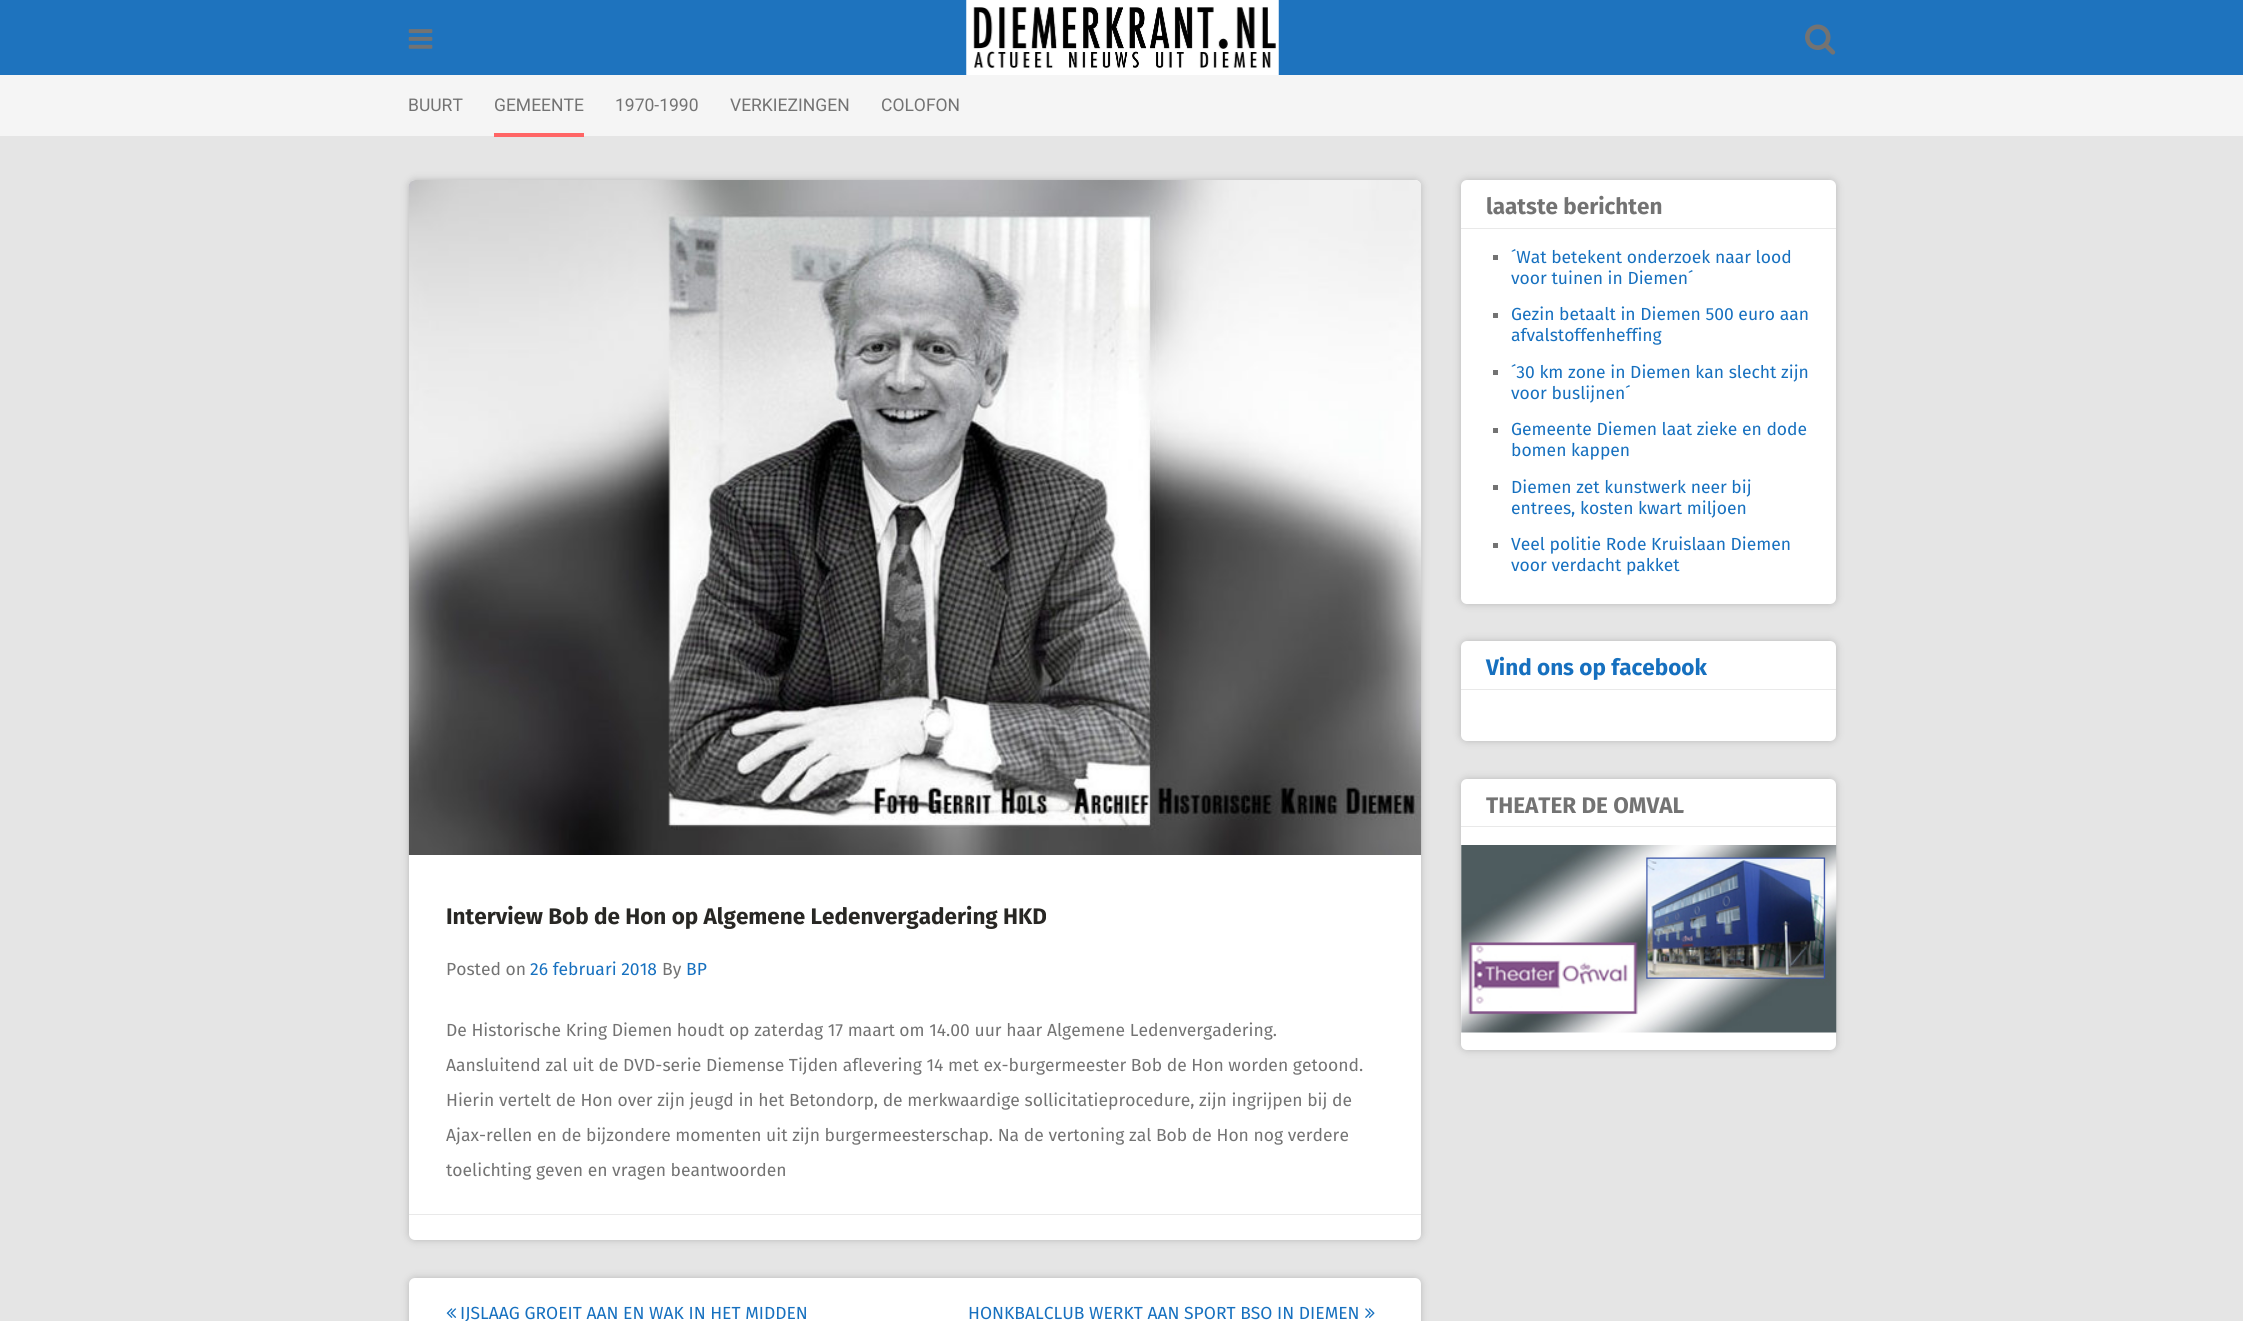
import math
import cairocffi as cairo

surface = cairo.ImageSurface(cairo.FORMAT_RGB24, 2243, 1321)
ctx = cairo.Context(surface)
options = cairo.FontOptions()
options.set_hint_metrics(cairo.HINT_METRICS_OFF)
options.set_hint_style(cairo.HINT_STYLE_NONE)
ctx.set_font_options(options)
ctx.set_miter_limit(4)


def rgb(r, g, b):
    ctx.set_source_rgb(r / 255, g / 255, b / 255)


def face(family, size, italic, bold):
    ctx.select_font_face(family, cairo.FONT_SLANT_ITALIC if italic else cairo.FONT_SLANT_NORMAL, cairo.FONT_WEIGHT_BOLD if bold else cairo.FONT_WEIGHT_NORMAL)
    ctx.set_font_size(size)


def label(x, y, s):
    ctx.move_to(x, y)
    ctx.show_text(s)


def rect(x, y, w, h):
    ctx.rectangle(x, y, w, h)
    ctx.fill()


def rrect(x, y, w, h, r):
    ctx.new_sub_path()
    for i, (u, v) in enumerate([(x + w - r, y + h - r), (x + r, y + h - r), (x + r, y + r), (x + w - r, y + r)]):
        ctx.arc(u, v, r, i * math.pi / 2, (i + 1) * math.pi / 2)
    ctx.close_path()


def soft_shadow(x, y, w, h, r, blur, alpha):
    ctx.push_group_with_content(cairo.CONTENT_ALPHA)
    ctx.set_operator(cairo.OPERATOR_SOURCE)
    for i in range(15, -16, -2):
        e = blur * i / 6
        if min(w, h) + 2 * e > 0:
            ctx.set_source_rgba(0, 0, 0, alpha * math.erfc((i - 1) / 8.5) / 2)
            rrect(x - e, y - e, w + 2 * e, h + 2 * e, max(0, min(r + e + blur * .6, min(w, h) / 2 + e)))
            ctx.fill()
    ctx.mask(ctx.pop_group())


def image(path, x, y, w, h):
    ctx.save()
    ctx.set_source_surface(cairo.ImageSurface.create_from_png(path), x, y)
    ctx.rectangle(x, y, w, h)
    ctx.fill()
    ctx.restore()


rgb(229, 229, 229)
ctx.paint()
rgb(30, 115, 190)
rect(0, 0, 2243, 75)
image('image0.png', 408, 29, 25, 20)
image('image1.png', 966, 0, 313, 75)
image('image2.png', 1805, 24, 31, 31)
rgb(245, 245, 245)
rect(0, 75, 2243, 61)
face('Roboto', 17.5, 0, 0)
rgb(115, 115, 115)
label(408, 111, 'BUURT')
label(494, 111, 'GEMEENTE')
rgb(255, 101, 101)
rect(494, 133, 90, 4)
rgb(115, 115, 115)
label(615, 111, '1970-1990')
label(730, 111, 'VERKIEZINGEN')
label(881, 111, 'COLOFON')
rgb(0, 0, 0)
soft_shadow(1461, 180, 375, 424, 6, 4, 0.2)
rgb(255, 255, 255)
rrect(1461, 180, 375, 424, 6)
ctx.fill()
rgb(233, 233, 233)
rect(1461, 228, 375, 1)
face('Fira Sans', 22.5, 0, 1)
rgb(115, 115, 115)
label(1486, 214, 'laatste berichten')
rect(1493, 255, 5, 5)
face('Fira Sans', 17.5, 0, 0)
rgb(22, 112, 191)
label(1511, 263, '´Wat betekent onderzoek naar lood')
label(1511, 284, 'voor tuinen in Diemen´')
rgb(115, 115, 115)
rect(1493, 313, 5, 5)
rgb(22, 112, 191)
label(1511, 320, 'Gezin betaalt in Diemen 500 euro aan')
label(1511, 341, 'afvalstoffenheffing')
rgb(115, 115, 115)
rect(1493, 370, 5, 5)
rgb(22, 112, 191)
label(1511, 378, '´30 km zone in Diemen kan slecht zijn')
label(1511, 399, 'voor buslijnen´')
rgb(115, 115, 115)
rect(1493, 428, 5, 5)
rgb(22, 112, 191)
label(1511, 435, 'Gemeente Diemen laat zieke en dode')
label(1511, 456, 'bomen kappen')
rgb(115, 115, 115)
rect(1493, 485, 5, 5)
rgb(22, 112, 191)
label(1511, 493, 'Diemen zet kunstwerk neer bij')
label(1511, 514, 'entrees, kosten kwart miljoen')
rgb(115, 115, 115)
rect(1493, 543, 5, 5)
rgb(22, 112, 191)
label(1511, 550, 'Veel politie Rode Kruislaan Diemen')
label(1511, 571, 'voor verdacht pakket')
rgb(0, 0, 0)
soft_shadow(1461, 641, 375, 100, 6, 4, 0.2)
rgb(255, 255, 255)
rrect(1461, 641, 375, 100, 6)
ctx.fill()
rgb(233, 233, 233)
rect(1461, 689, 375, 1)
face('Fira Sans', 22.5, 0, 1)
rgb(22, 112, 191)
label(1486, 675, 'Vind ons op facebook')
rgb(0, 0, 0)
soft_shadow(1461, 779, 375, 271, 6, 4, 0.2)
rgb(255, 255, 255)
rrect(1461, 779, 375, 271, 6)
ctx.fill()
rgb(233, 233, 233)
rect(1461, 826, 375, 1)
rgb(115, 115, 115)
label(1486, 813, 'THEATER DE OMVAL')
image('image3.png', 1461, 845, 376, 188)
rgb(0, 0, 0)
soft_shadow(409, 180, 1012, 1060, 6, 4, 0.2)
rgb(255, 255, 255)
rrect(409, 180, 1012, 1060, 6)
ctx.fill()
image('image4.png', 408, 180, 1014, 675)
rgb(40, 39, 36)
label(446, 924, 'Interview Bob de Hon op Algemene Ledenvergadering HKD')
face('Fira Sans', 17.5, 0, 0)
rgb(115, 115, 115)
label(446, 975, 'Posted on')
rgb(22, 112, 191)
label(530, 975, '26 februari 2018')
rgb(115, 115, 115)
label(662, 975, 'By')
rgb(22, 112, 191)
label(686, 975, 'BP')
rgb(115, 115, 115)
label(446, 1036, 'De Historische Kring Diemen houdt op zaterdag 17 maart om 14.00 uur haar Algemene Ledenvergadering.')
label(446, 1071, 'Aansluitend zal uit de DVD-serie Diemense Tijden aflevering 14 met ex-burgermeester Bob de Hon worden getoond.')
label(446, 1106, 'Hierin vertelt de Hon over zijn jeugd in het Betondorp, de merkwaardige sollicitatieprocedure, zijn ingrijpen bij de')
label(446, 1141, 'Ajax-rellen en de bijzondere momenten uit zijn burgermeesterschap. Na de vertoning zal Bob de Hon nog verdere')
label(446, 1176, 'toelichting geven en vragen beantwoorden')
rgb(233, 233, 233)
rect(409, 1214, 1012, 1)
rgb(0, 0, 0)
soft_shadow(409, 1278, 1012, 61, 6, 4, 0.2)
rgb(255, 255, 255)
rrect(409, 1278, 1012, 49, 6)
ctx.fill()
image('image5.png', 446, 1308, 11, 10)
rgb(22, 112, 191)
label(460, 1319, 'IJSLAAG GROEIT AAN EN WAK IN HET MIDDEN')
label(968, 1319, 'HONKBALCLUB WERKT AAN SPORT BSO IN DIEMEN')
image('image6.png', 1365, 1308, 10, 10)
surface.write_to_png('render.png')
